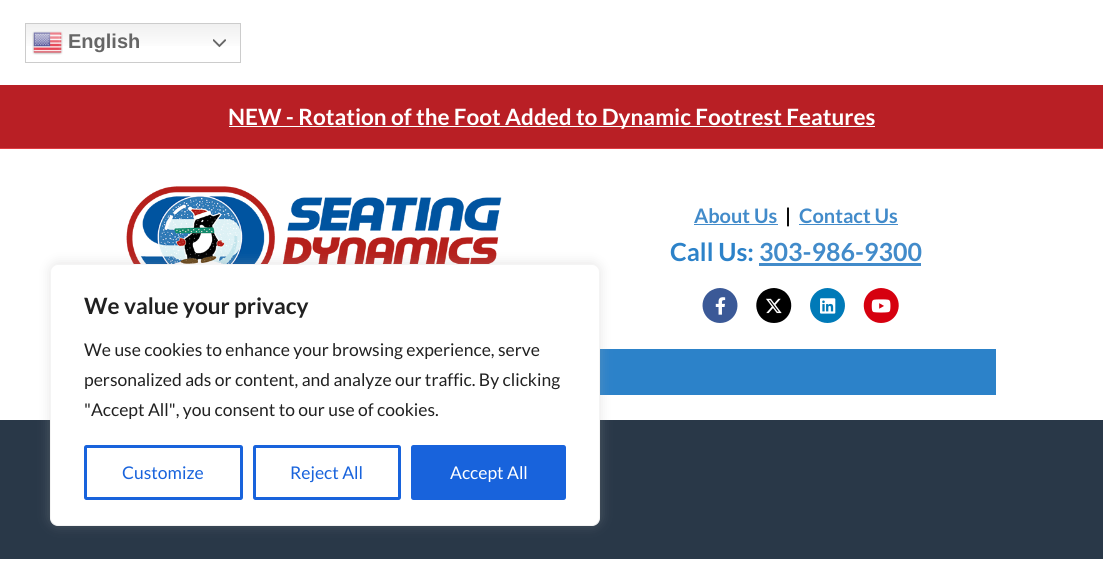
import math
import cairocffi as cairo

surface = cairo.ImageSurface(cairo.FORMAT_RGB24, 1103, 576)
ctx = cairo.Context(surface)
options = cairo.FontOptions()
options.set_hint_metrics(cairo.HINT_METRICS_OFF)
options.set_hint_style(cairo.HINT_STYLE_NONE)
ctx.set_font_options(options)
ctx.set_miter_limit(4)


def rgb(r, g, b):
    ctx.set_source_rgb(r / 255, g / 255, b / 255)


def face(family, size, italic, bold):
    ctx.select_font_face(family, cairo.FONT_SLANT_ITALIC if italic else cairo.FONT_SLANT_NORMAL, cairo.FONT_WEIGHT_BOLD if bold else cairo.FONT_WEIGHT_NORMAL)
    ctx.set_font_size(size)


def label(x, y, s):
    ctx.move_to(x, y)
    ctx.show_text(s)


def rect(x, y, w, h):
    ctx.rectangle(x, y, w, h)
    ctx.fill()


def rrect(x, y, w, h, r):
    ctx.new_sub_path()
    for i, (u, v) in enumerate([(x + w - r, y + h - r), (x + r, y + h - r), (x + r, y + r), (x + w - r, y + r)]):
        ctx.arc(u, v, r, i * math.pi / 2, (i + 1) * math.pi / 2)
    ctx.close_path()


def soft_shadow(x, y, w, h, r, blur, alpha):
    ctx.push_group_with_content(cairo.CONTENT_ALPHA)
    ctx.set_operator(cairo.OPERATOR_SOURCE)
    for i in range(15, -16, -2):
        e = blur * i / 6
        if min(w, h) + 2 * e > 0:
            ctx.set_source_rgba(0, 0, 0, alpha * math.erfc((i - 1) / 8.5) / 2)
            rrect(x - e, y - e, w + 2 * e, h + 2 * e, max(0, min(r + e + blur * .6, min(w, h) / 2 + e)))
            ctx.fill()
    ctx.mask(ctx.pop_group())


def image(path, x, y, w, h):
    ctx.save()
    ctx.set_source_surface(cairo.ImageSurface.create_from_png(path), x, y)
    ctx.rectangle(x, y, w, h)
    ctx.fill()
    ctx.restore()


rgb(255, 255, 255)
ctx.paint()
gradient = cairo.LinearGradient(133, 22, 133, 63)
gradient.add_color_stop_rgba(0, 0.937, 0.937, 0.937, 1)
gradient.add_color_stop_rgba(0.7, 1, 1, 1, 1)
ctx.set_source(gradient)
rect(26, 24, 214, 22)
ctx.rectangle(25.5, 23.5, 215, 39)
rgb(204, 204, 204)
ctx.set_line_width(1)
ctx.stroke()
image('image0.png', 32, 31, 31, 24)
face('Liberation Sans', 20, 0, 1)
rgb(102, 102, 102)
label(68, 48, 'English')
image('image1.png', 213, 39, 13, 9)
rgb(185, 31, 37)
rect(0, 85, 1103, 63)
rgb(222, 60, 66)
rect(0, 148, 1103, 1)
rgb(255, 255, 255)
rect(229, 126, 646, 1)
face('Lato', 22.5, 0, 1)
label(228, 125, 'NEW - Rotation of the Foot Added to Dynamic Footrest Features')
image('image2.png', 126, 186, 376, 78)
face('Lato', 20, 0, 1)
rgb(66, 139, 202)
label(694, 223, 'About Us')
rect(694, 224, 84, 1)
rgb(0, 0, 0)
label(785, 223, '|')
rgb(66, 139, 202)
label(799, 223, 'Contact Us')
rect(799, 224, 99, 1)
face('Lato', 25, 0, 1)
rgb(44, 130, 201)
label(670, 261, 'Call Us:')
rgb(66, 139, 202)
label(759, 261, '303-986-9300')
rect(759, 263, 162, 3)
rgb(59, 89, 151)
ctx.new_path()
ctx.move_to(720, 323)
ctx.curve_to(736.5, 323, 744, 302, 730.5, 291.5)
ctx.curve_to(727.5, 289.5, 724, 288, 720, 288)
ctx.curve_to(716, 288, 712.5, 289.5, 709.5, 291.5)
ctx.curve_to(696, 302, 703.5, 323, 720, 323)
ctx.close_path()
ctx.fill()
image('image3.png', 715, 297, 11, 18)
rgb(0, 0, 0)
ctx.new_path()
ctx.move_to(774, 323)
ctx.curve_to(790.5, 323, 797.5, 302, 784.5, 291.5)
ctx.curve_to(781.5, 289.5, 777.5, 288, 774, 288)
ctx.curve_to(770, 288, 766, 289.5, 763, 291.5)
ctx.curve_to(750, 302, 757, 323, 774, 323)
ctx.close_path()
ctx.fill()
image('image4.png', 766, 298, 16, 16)
rgb(0, 122, 184)
ctx.new_path()
ctx.move_to(827.5, 323)
ctx.curve_to(844, 323, 851.5, 302, 838, 291.5)
ctx.curve_to(835, 289.5, 831.5, 288, 827.5, 288)
ctx.curve_to(823.5, 288, 820, 289.5, 817, 291.5)
ctx.curve_to(803.5, 302, 811, 323, 827.5, 323)
ctx.close_path()
ctx.fill()
image('image5.png', 820, 298, 16, 16)
rgb(214, 0, 15)
ctx.new_path()
ctx.move_to(881, 323)
ctx.curve_to(898, 323, 905, 302, 892, 291.5)
ctx.curve_to(889, 289.5, 885, 288, 881, 288)
ctx.curve_to(877.5, 288, 873.5, 289.5, 870.5, 291.5)
ctx.curve_to(857.5, 302, 864.5, 323, 881, 323)
ctx.close_path()
ctx.fill()
image('image6.png', 871, 299, 20, 14)
rgb(44, 130, 201)
rect(600, 349, 396, 46)
rgb(41, 56, 72)
rect(0, 420, 1103, 139)
rgb(172, 171, 171)
soft_shadow(50, 263, 550, 262, 8, 6, 0.3)
rgb(255, 255, 255)
rrect(50.5, 264.5, 549, 261, 7.5)
ctx.fill_preserve()
rgb(244, 244, 244)
ctx.stroke()
face('Lato', 22.5, 0, 1)
rgb(33, 33, 33)
label(84, 314, 'We value your privacy')
face('Lato', 17.5, 0, 0)
label(84, 356, 'We use cookies to enhance your browsing experience, serve')
label(84, 386, 'personalized ads or content, and analyze our traffic. By clicking')
label(84, 416, '"Accept All", you consent to our use of cookies.')
rrect(85.5, 446.5, 156, 52, 1)
rgb(24, 99, 220)
ctx.set_line_width(3)
ctx.stroke()
label(122, 479, 'Customize')
rrect(254.5, 446.5, 145, 52, 1)
ctx.stroke()
label(290, 479, 'Reject All')
rrect(412.5, 446.5, 152, 52, 1)
ctx.fill_preserve()
ctx.stroke()
rgb(255, 255, 255)
label(450, 479, 'Accept All')
surface.write_to_png('render.png')
